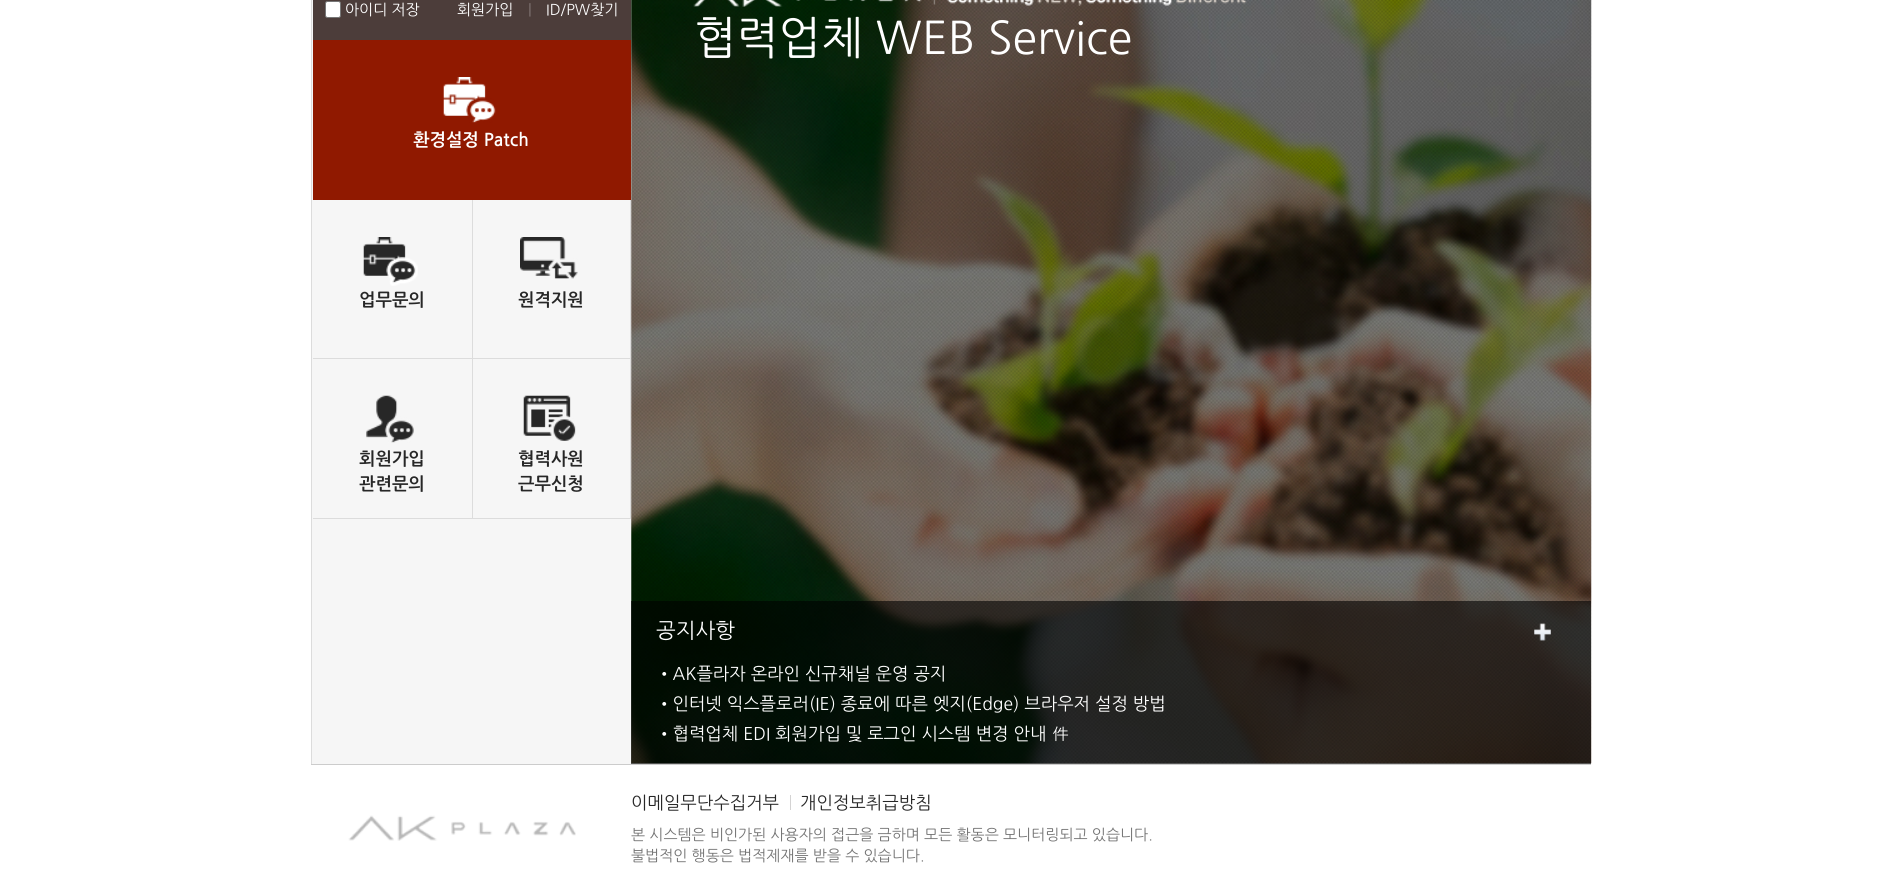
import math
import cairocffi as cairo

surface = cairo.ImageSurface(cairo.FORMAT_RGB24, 1902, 869)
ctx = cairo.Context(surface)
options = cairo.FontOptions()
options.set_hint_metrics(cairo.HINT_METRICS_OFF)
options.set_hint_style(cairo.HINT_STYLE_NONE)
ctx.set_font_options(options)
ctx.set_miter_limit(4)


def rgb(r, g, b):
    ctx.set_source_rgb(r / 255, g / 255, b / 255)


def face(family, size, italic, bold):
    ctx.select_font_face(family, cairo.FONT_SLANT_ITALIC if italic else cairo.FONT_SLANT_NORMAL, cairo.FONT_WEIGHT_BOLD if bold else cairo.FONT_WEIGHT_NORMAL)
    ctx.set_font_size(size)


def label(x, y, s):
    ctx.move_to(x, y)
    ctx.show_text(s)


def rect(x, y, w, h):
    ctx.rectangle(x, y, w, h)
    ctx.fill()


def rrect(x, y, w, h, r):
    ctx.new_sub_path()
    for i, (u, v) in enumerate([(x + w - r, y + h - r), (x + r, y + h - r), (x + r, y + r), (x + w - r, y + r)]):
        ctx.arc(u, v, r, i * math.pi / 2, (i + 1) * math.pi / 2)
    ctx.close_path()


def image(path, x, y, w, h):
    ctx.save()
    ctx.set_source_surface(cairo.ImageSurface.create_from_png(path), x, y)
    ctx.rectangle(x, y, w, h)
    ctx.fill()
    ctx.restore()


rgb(255, 255, 255)
ctx.paint()
rgb(246, 246, 246)
rect(312, 0, 319, 764)
rgb(220, 220, 220)
rect(311, 0, 1, 764)
rgb(76, 61, 58)
rect(313, 0, 318, 40)
rgb(255, 255, 255)
rrect(325.5, 1.5, 15, 16, 2)
ctx.fill_preserve()
rgb(118, 118, 118)
ctx.set_line_width(1)
ctx.stroke()
face('NanumGothic', 15, 0, 0)
rgb(255, 255, 255)
label(345, 15, '아이디 저장')
label(457, 15, '회원가입')
rgb(130, 119, 117)
label(528, 15, '|')
rgb(255, 255, 255)
label(546, 15, 'ID/PW찾기')
rgb(144, 25, 0)
rect(313, 40, 318, 160)
image('image0.png', 443, 77, 53, 46)
face('NanumGothic', 17.5, 0, 1)
rgb(255, 255, 255)
label(413, 146, '환경설정 Patch')
image('image1.png', 363, 237, 55, 49)
ctx.save()
ctx.rectangle(313, 200, 160, 159)
ctx.clip()
ctx.rectangle(311.5, 199.5, 161, 159)
rgb(220, 220, 220)
ctx.stroke()
ctx.restore()
rgb(39, 39, 39)
label(359, 306, '업무문의')
image('image2.png', 520, 237, 58, 42)
ctx.save()
ctx.rectangle(473, 200, 158, 159)
ctx.clip()
ctx.rectangle(471.5, 199.5, 159, 159)
rgb(220, 220, 220)
ctx.stroke()
ctx.restore()
label(518, 306, '원격지원')
image('image3.png', 366, 395, 48, 48)
ctx.save()
ctx.rectangle(313, 359, 160, 160)
ctx.clip()
ctx.rectangle(311.5, 358.5, 161, 160)
rgb(220, 220, 220)
ctx.stroke()
ctx.restore()
label(359, 465, '회원가입')
label(359, 490, '관련문의')
image('image4.png', 523, 395, 53, 46)
ctx.save()
ctx.rectangle(473, 359, 158, 160)
ctx.clip()
ctx.rectangle(471.5, 358.5, 159, 160)
rgb(220, 220, 220)
ctx.stroke()
ctx.restore()
label(518, 465, '협력사원')
label(518, 490, '근무신청')
image('image5.png', 631, 0, 961, 764)
image('image6.png', 693, 0, 554, 7)
face('NanumGothic', 45, 0, 0)
rgb(255, 255, 255)
label(694, 54, '협력업체 WEB Service')
ctx.set_source_rgba(0, 0, 0, 0.6)
rect(631, 601, 960, 163)
face('NanumGothic', 21, 0, 0)
rgb(255, 255, 255)
label(656, 638, '공지사항')
image('image7.png', 1534, 623, 17, 18)
face('NanumGothic', 17.5, 0, 0)
label(656, 680, '•AK플라자 온라인 신규채널 운영 공지')
label(656, 710, '•인터넷 익스플로러(IE) 종료에 따른 엣지(Edge) 브라우저 설정 방법')
label(656, 740, '•협력업체 EDI 회원가입 및 로그인 시스템 변경 안내')
face('Dotum', 17.5, 0, 0)
label(1052, 740, '件')
rgb(204, 204, 204)
rect(311, 764, 1280, 1)
face('NanumGothic', 17.5, 0, 0)
rgb(39, 39, 39)
label(631, 809, '이메일무단수집거부')
rgb(212, 211, 211)
rect(790, 795, 1, 15)
rgb(39, 39, 39)
label(800, 809, '개인정보취급방침')
image('image8.png', 348, 815, 228, 26)
face('NanumGothic', 15, 0, 0)
rgb(116, 116, 116)
label(631, 840, '본 시스템은 비인가된 사용자의 접근을 금하며 모든 활동은 모니터링되고 있습니다.')
label(631, 861, '불법적인 행동은 법적제재를 받을 수 있습니다.')
surface.write_to_png('render.png')
